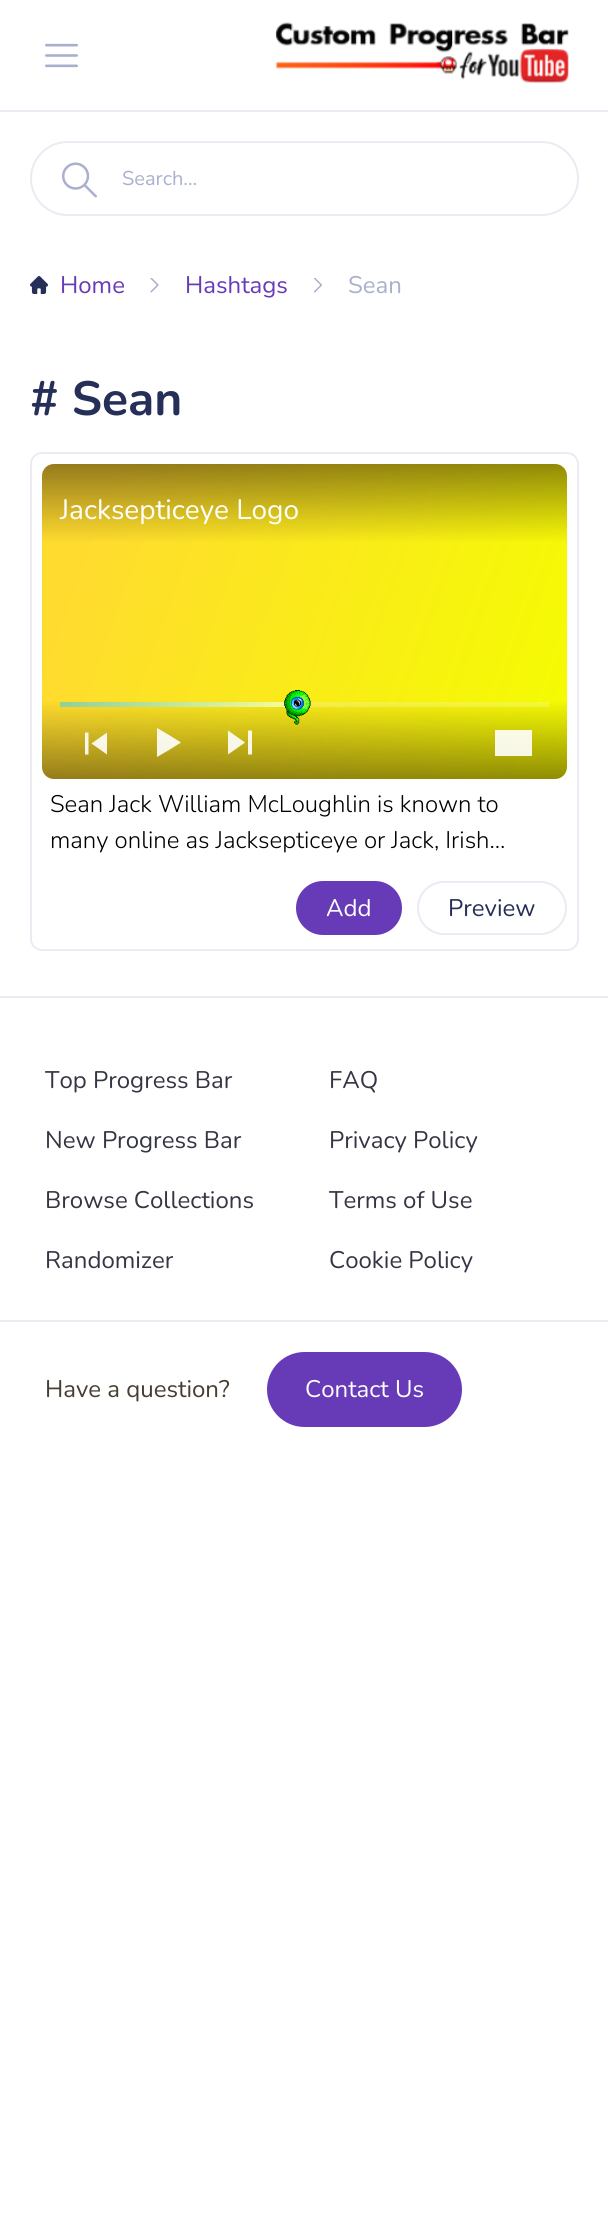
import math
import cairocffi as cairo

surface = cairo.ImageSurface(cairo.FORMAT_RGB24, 608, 2213)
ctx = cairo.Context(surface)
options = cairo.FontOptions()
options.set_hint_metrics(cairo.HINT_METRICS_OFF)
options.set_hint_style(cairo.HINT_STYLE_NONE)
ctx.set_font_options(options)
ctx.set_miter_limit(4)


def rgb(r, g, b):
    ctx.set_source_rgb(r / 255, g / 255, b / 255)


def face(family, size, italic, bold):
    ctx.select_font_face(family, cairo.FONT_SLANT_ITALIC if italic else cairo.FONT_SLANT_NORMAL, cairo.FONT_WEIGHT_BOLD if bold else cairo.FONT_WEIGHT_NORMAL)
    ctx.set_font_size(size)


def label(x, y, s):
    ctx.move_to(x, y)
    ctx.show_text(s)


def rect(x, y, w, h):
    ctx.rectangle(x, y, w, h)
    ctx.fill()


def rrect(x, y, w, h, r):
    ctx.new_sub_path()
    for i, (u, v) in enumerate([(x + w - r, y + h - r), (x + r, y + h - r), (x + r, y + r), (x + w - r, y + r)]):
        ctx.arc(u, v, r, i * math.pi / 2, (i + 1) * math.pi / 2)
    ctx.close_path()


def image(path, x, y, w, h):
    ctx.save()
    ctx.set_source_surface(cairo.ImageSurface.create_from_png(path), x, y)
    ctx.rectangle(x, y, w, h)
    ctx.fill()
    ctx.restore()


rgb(255, 255, 255)
ctx.paint()
rgb(234, 235, 243)
rect(0, 110, 608, 2)
image('image0.png', 45, 43, 33, 25)
image('image1.png', 275, 22, 294, 62)
rrect(31, 142, 547, 73, 36.5)
ctx.stroke()
image('image2.png', 62, 162, 35, 36)
face('Nunito', 20, 0, 0)
rgb(168, 176, 205)
label(122, 185, 'Search...')
image('image3.png', 30, 276, 18, 18)
face('Nunito', 24, 0, 0)
rgb(103, 58, 183)
label(60, 293, 'Home')
image('image4.png', 150, 278, 9, 15)
label(185, 293, 'Hashtags')
image('image5.png', 314, 278, 8, 15)
rgb(168, 176, 205)
label(348, 293, 'Sean')
face('Nunito', 48, 0, 1)
rgb(37, 47, 87)
label(30, 415, '# Sean')
rrect(31, 453, 547, 497, 11)
rgb(234, 235, 243)
ctx.stroke()
gradient = cairo.LinearGradient(22, 520, 588, 722)
gradient.add_color_stop_rgba(0.11, 1, 0.859, 0.184, 1)
gradient.add_color_stop_rgba(1, 0.957, 0.992, 0, 1)
ctx.set_source(gradient)
rrect(42, 464, 525, 315, 12)
ctx.fill()
gradient = cairo.LinearGradient(305, 464, 305, 779)
gradient.add_color_stop_rgba(0, 0.078, 0.02, 0.02, 0.45)
gradient.add_color_stop_rgba(0.25, 0.078, 0.02, 0.02, 0)
gradient.add_color_stop_rgba(0.75, 0.078, 0.02, 0.02, 0)
gradient.add_color_stop_rgba(1, 0.078, 0.02, 0.02, 0.45)
ctx.set_source(gradient)
rrect(42, 464, 525, 315, 12)
ctx.fill()
face('Nunito', 28, 0, 0)
rgb(255, 255, 255)
label(60, 519, 'Jacksepticeye Logo')
ctx.set_source_rgba(1, 1, 1, 0.2)
rect(309, 702, 240, 5)
gradient = cairo.LinearGradient(60, 705, 305, 705)
gradient.add_color_stop_rgba(0, 0.565, 0.816, 0.6, 1)
gradient.add_color_stop_rgba(1, 0.996, 1, 0.592, 1)
ctx.set_source(gradient)
rect(60, 702, 225, 5)
image('image6.png', 284, 690, 27, 35)
ctx.set_source_rgba(1, 1, 1, 0.9)
ctx.new_path()
ctx.move_to(107, 732.5)
ctx.line_to(91.5, 743.5)
ctx.line_to(107, 754.5)
ctx.close_path()
ctx.move_to(88.5, 754.5)
ctx.line_to(88.5, 732.5)
ctx.line_to(85, 732.5)
ctx.line_to(85, 754.5)
ctx.close_path()
ctx.fill()
ctx.new_path()
ctx.move_to(157, 757)
ctx.line_to(169, 750)
ctx.line_to(169, 735)
ctx.line_to(157, 728)
ctx.close_path()
ctx.move_to(169, 750)
ctx.line_to(181, 742.5)
ctx.line_to(169, 735)
ctx.close_path()
ctx.fill()
ctx.new_path()
ctx.move_to(228, 754.5)
ctx.line_to(245, 742.5)
ctx.line_to(228, 730.5)
ctx.close_path()
ctx.move_to(248, 730.5)
ctx.line_to(248, 754.5)
ctx.line_to(252, 754.5)
ctx.line_to(252, 730.5)
ctx.close_path()
ctx.fill()
rect(495, 730, 37, 26)
face('Nunito Light', 24, 0, 0)
rgb(0, 0, 0)
label(50, 812, 'Sean Jack William McLoughlin is known to')
label(50, 848, 'many online as Jacksepticeye or Jack, Irish…')
rgb(103, 58, 183)
rrect(296, 881, 106, 54, 27)
ctx.fill()
face('Nunito', 24, 0, 0)
rgb(255, 255, 255)
label(326, 916, 'Add')
rrect(418, 882, 148, 52, 26)
rgb(234, 235, 243)
ctx.stroke()
rgb(37, 47, 87)
label(448, 916, 'Preview')
rgb(234, 235, 243)
rect(0, 996, 608, 2)
rgb(53, 54, 68)
label(45, 1088, 'Top Progress Bar')
label(45, 1148, 'New Progress Bar')
label(45, 1208, 'Browse Collections')
label(45, 1268, 'Randomizer')
label(329, 1088, 'FAQ')
label(329, 1148, 'Privacy Policy')
label(329, 1208, 'Terms of Use')
label(329, 1268, 'Cookie Policy')
rgb(234, 235, 243)
rect(0, 1320, 608, 2)
rgb(70, 62, 49)
label(45, 1397, 'Have a question?')
rgb(103, 58, 183)
rrect(267, 1352, 195, 75, 37.5)
ctx.fill()
rgb(255, 255, 255)
label(305, 1397, 'Contact Us')
surface.write_to_png('render.png')
